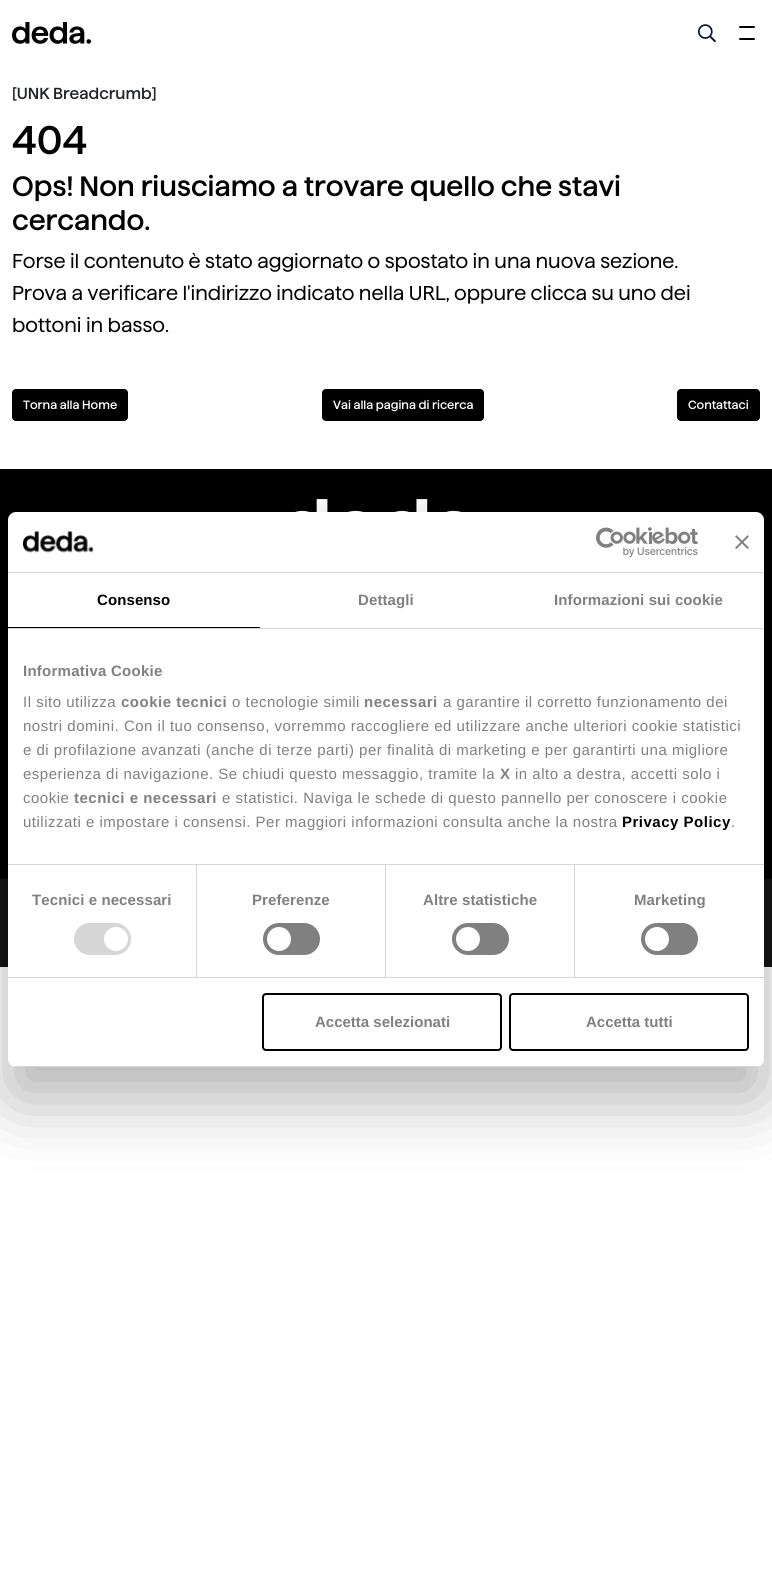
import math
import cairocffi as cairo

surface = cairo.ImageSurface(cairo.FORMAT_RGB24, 772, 1579)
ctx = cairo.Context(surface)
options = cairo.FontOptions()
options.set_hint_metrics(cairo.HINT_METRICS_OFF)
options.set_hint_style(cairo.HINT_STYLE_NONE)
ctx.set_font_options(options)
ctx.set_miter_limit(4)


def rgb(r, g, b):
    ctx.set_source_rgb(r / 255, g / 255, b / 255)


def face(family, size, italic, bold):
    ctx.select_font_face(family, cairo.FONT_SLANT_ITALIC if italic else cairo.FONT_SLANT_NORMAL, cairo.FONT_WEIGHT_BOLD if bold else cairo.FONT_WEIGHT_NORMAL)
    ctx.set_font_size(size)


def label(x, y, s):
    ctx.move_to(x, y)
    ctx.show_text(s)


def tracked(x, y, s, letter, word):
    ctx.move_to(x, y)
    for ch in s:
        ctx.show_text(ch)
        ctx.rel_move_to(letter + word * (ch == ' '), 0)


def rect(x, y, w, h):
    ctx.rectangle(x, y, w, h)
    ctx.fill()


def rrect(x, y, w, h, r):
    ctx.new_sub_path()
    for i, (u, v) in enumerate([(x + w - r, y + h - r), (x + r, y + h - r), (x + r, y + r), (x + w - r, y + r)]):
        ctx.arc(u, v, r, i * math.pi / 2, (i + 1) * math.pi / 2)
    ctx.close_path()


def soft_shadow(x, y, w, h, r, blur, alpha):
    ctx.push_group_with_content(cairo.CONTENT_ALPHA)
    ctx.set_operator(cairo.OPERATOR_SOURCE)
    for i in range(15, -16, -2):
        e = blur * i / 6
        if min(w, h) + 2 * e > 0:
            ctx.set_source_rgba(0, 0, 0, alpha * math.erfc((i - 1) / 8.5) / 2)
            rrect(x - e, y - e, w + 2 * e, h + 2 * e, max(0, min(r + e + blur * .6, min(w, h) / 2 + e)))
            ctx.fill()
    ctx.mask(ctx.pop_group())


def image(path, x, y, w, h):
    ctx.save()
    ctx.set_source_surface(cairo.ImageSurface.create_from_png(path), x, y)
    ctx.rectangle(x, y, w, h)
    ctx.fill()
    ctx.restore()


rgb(255, 255, 255)
ctx.paint()
image('image0.png', 12, 22, 79, 22)
image('image1.png', 698, 24, 18, 19)
rgb(0, 0, 0)
rrect(739, 26, 16, 2, 1)
ctx.fill()
rrect(739, 38, 16, 2, 1)
ctx.fill()
face('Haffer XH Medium', 16, 0, 0)
rgb(33, 37, 41)
label(12, 99, '[UNK Breadcrumb]')
face('Haffer XH Medium', 40, 0, 0)
rgb(0, 0, 0)
label(12, 154, '404')
face('Haffer XH Medium', 28, 0, 0)
label(12, 196, 'Ops! Non riusciamo a trovare quello che stavi')
label(12, 230, 'cercando.')
face('Haffer XH', 20, 0, 0)
label(12, 268, 'Forse il contenuto è stato aggiornato o spostato in una nuova sezione.')
label(12, 300, 'Prova a verificare l\'indirizzo indicato nella URL, oppure clicca su uno dei')
label(12, 332, 'bottoni in basso.')
rrect(12.5, 389.5, 115, 31, 3.5)
ctx.fill_preserve()
ctx.set_line_width(1)
ctx.stroke()
face('Haffer XH Medium', 12, 0, 0)
rgb(255, 255, 255)
label(23, 409, 'Torna alla Home')
rgb(0, 0, 0)
rrect(322.5, 389.5, 161, 31, 3.5)
ctx.fill_preserve()
ctx.stroke()
rgb(255, 255, 255)
label(333, 409, 'Vai alla pagina di ricerca')
rgb(0, 0, 0)
rrect(677.5, 389.5, 82, 31, 3.5)
ctx.fill_preserve()
ctx.stroke()
rgb(255, 255, 255)
label(688, 409, 'Contattaci')
rgb(0, 0, 0)
rect(0, 469, 772, 410)
image('image2.png', 295, 499, 166, 13)
rgb(20, 20, 20)
rect(0, 879, 772, 88)
rgb(0, 0, 0)
soft_shadow(8, 544, 756, 555, 8, 34, 0.3)
rgb(255, 255, 255)
rrect(8, 512, 756, 555, 8)
ctx.fill()
rgb(214, 214, 214)
rect(8, 572, 756, 1)
image('image3.png', 23, 531, 70, 22)
image('image4.png', 596, 527, 102, 30)
image('image5.png', 735, 535, 14, 14)
rect(8, 628, 756, 1)
rgb(0, 0, 0)
rect(8, 627, 252, 1)
face('Liberation Sans', 15, 0, 1)
tracked(97, 605, 'Consenso', 0.1, 0)
rgb(128, 128, 128)
tracked(358, 605, 'Dettagli', 0.1, 0)
tracked(554, 605, 'Informazioni sui cookie', 0.1, 0)
rgb(214, 214, 214)
rect(8, 864, 756, 1)
rgb(128, 128, 128)
tracked(23, 676, 'Informativa Cookie', 0.25, 0)
face('Liberation Sans', 15, 0, 0)
tracked(23, 707, 'Il sito utilizza', 0.5, 0)
face('Liberation Sans', 15, 0, 1)
tracked(121, 707, 'cookie tecnici', 0.5, 0)
face('Liberation Sans', 15, 0, 0)
tracked(232, 707, 'o tecnologie simili', 0.5, 0)
face('Liberation Sans', 15, 0, 1)
tracked(364, 707, 'necessari', 0.5, 0)
face('Liberation Sans', 15, 0, 0)
tracked(443, 707, 'a garantire il corretto funzionamento dei', 0.5, 0)
tracked(23, 731, 'nostri domini. Con il tuo consenso, vorremmo raccogliere ed utilizzare anche ulteriori cookie statistici', 0.5, 0)
tracked(23, 755, 'e di profilazione avanzati (anche di terze parti) per finalità di marketing e per garantirti una migliore', 0.5, 0)
tracked(23, 779, 'esperienza di navigazione. Se chiudi questo messaggio, tramite la', 0.5, 0)
face('Liberation Sans', 15, 0, 1)
tracked(500, 779, 'X', 0.5, 0)
face('Liberation Sans', 15, 0, 0)
tracked(515, 779, 'in alto a destra, accetti solo i', 0.5, 0)
tracked(23, 803, 'cookie', 0.5, 0)
face('Liberation Sans', 15, 0, 1)
tracked(74, 803, 'tecnici e necessari', 0.5, 0)
face('Liberation Sans', 15, 0, 0)
tracked(222, 803, 'e statistici. Naviga le schede di questo pannello per conoscere i cookie', 0.5, 0)
tracked(23, 827, 'utilizzati e impostare i consensi. Per maggiori informazioni consulta anche la nostra', 0.5, 0)
face('Liberation Sans', 15, 0, 1)
rgb(0, 0, 0)
tracked(622, 827, 'Privacy Policy', 0.5, 0)
face('Liberation Sans', 15, 0, 0)
rgb(128, 128, 128)
tracked(731, 827, '.', 0.5, 0)
rgb(214, 214, 214)
rect(8, 977, 756, 1)
rect(196, 865, 1, 112)
face('Liberation Sans', 15, 0, 1)
rgb(128, 128, 128)
tracked(32, 905, 'Tecnici e necessari', 0.1, 0)
rgb(214, 214, 214)
rrect(74, 923, 57, 32, 16)
ctx.fill()
rgb(255, 255, 255)
ctx.arc(116, 939, 12, 0, 2 * math.pi)
ctx.fill()
rgb(214, 214, 214)
rect(385, 865, 1, 112)
rgb(128, 128, 128)
tracked(252, 905, 'Preferenze', 0.1, 0)
rrect(263, 923, 57, 32, 16)
ctx.fill()
rgb(255, 255, 255)
ctx.arc(279, 939, 12, 0, 2 * math.pi)
ctx.fill()
rgb(214, 214, 214)
rect(574, 865, 1, 112)
rgb(128, 128, 128)
tracked(423, 905, 'Altre statistiche', 0.1, 0)
rrect(452, 923, 57, 32, 16)
ctx.fill()
rgb(255, 255, 255)
ctx.arc(468, 939, 12, 0, 2 * math.pi)
ctx.fill()
rgb(128, 128, 128)
tracked(634, 905, 'Marketing', 0.1, 0)
rrect(641, 923, 57, 32, 16)
ctx.fill()
rgb(255, 255, 255)
ctx.arc(657, 939, 12, 0, 2 * math.pi)
ctx.fill()
ctx.save()
rrect(8, 512, 756, 555, 8)
ctx.clip()
rgb(214, 214, 214)
rect(8, 1066, 756, 1)
ctx.restore()
rrect(263, 994, 238, 56, 3)
rgb(0, 0, 0)
ctx.set_line_width(2)
ctx.stroke()
rgb(128, 128, 128)
label(315, 1027, 'Accetta selezionati')
rrect(510, 994, 238, 56, 3)
rgb(0, 0, 0)
ctx.stroke()
rgb(128, 128, 128)
label(586, 1027, 'Accetta tutti')
surface.write_to_png('render.png')
